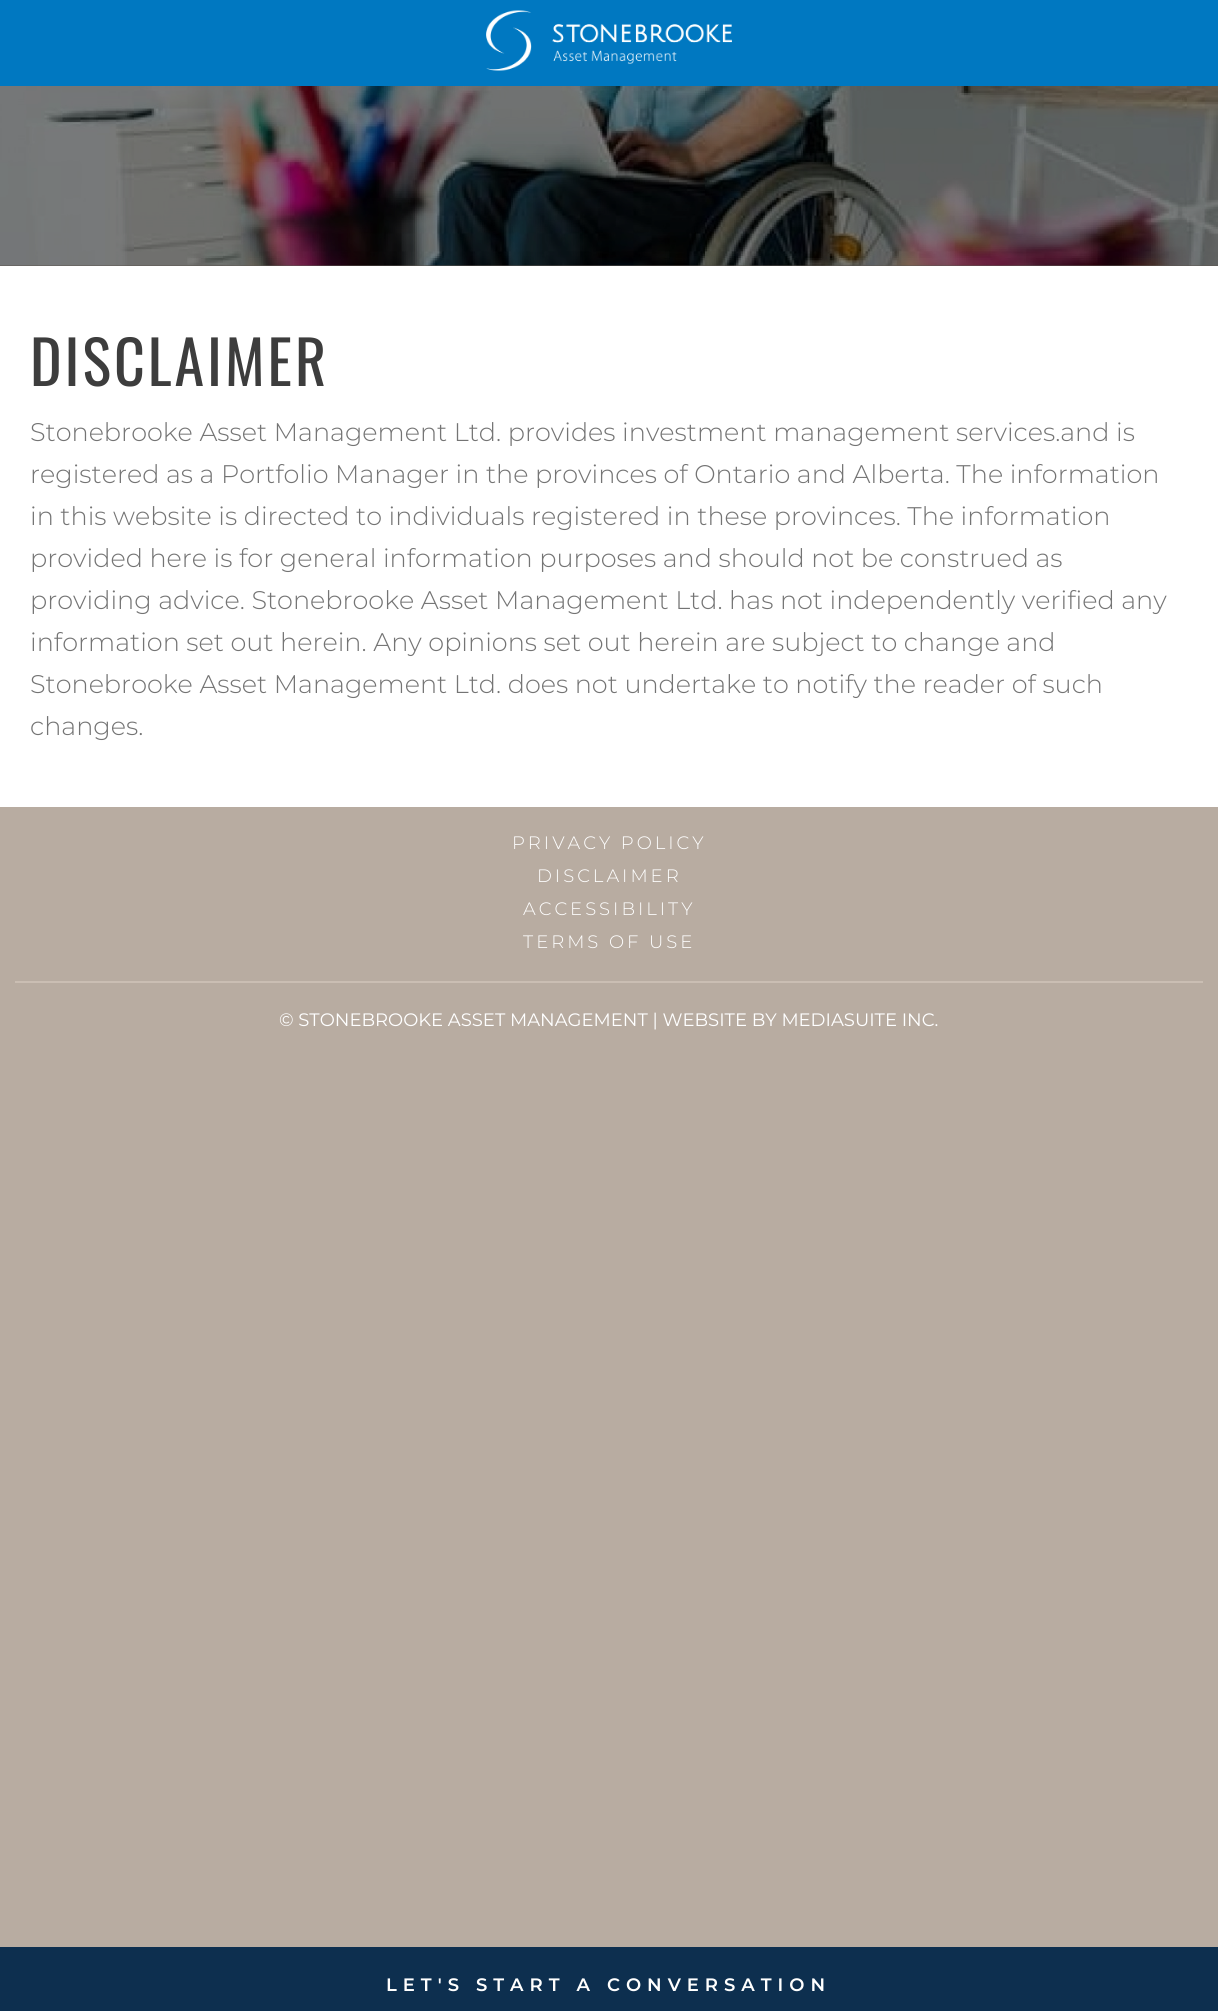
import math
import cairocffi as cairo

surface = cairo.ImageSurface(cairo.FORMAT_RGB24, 1218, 2011)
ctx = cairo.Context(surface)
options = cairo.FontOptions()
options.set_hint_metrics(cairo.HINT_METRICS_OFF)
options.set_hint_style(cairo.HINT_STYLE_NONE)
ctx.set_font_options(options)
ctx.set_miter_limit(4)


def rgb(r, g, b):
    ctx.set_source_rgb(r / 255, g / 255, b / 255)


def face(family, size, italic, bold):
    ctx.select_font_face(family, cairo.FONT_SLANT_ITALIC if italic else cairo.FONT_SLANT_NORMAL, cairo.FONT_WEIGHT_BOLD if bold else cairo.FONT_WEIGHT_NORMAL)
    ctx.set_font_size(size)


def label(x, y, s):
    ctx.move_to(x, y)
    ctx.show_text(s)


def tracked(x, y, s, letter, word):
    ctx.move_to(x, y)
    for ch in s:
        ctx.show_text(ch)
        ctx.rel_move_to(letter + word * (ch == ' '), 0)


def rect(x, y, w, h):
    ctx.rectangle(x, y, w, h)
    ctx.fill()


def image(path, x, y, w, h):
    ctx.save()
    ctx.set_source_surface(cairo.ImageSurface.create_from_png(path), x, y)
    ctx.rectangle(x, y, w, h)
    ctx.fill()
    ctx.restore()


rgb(184, 172, 161)
ctx.paint()
rgb(92, 86, 81)
rect(0, 265, 1218, 1)
rgb(0, 120, 193)
rect(0, 0, 1218, 86)
image('image0.png', 486, 10, 246, 61)
image('image1.png', 0, 86, 1218, 180)
rgb(255, 255, 255)
rect(0, 266, 1218, 541)
face('Oswald', 60, 0, 0)
rgb(61, 61, 61)
tracked(30, 386, 'DISCLAIMER', 3, 0)
face('Montserrat Light', 25.5, 0, 0)
rgb(116, 116, 116)
label(30, 441, 'Stonebrooke Asset Management Ltd. provides investment management services.and is')
label(30, 483, 'registered as a Portfolio Manager in the provinces of Ontario and Alberta. The information')
label(30, 525, 'in this website is directed to individuals registered in these provinces. The information')
label(30, 567, 'provided here is for general information purposes and should not be construed as')
label(30, 609, 'providing advice. Stonebrooke Asset Management Ltd. has not independently verified any')
label(30, 651, 'information set out herein. Any opinions set out herein are subject to change and')
label(30, 693, 'Stonebrooke Asset Management Ltd. does not undertake to notify the reader of such')
label(30, 735, 'changes.')
face('Montserrat Light', 18, 0, 0)
rgb(255, 255, 255)
tracked(512, 849, 'PRIVACY POLICY', 3, 0)
tracked(537, 882, 'DISCLAIMER', 3, 0)
tracked(523, 915, 'ACCESSIBILITY', 3, 0)
tracked(523, 948, 'TERMS OF USE', 3, 0)
rgb(202, 190, 179)
rect(15, 981, 1188, 2)
face('Montserrat', 18, 0, 0)
rgb(255, 255, 255)
label(279, 1026, '© STONEBROOKE ASSET MANAGEMENT | WEBSITE BY MEDIASUITE INC.')
rgb(13, 47, 79)
rect(0, 1947, 1218, 64)
face('Montserrat SemiBold', 18, 0, 0)
rgb(255, 255, 255)
tracked(386, 1991, 'LET\'S START A CONVERSATION', 6, 0)
surface.write_to_png('render.png')
